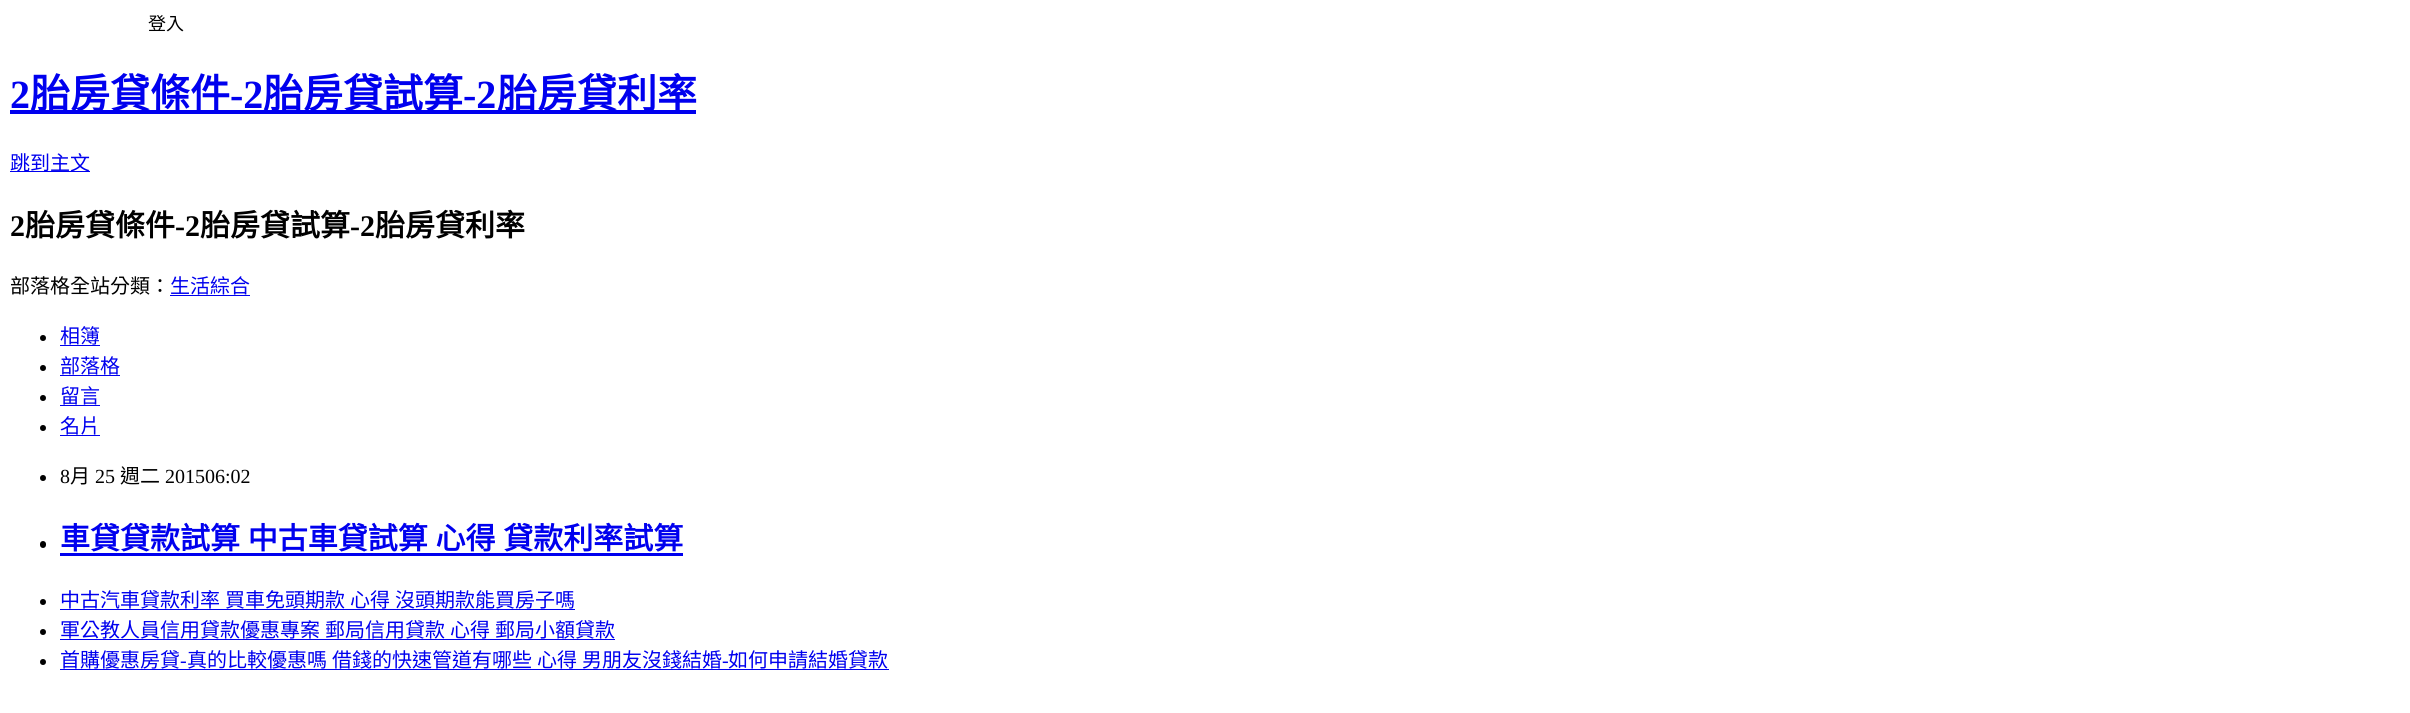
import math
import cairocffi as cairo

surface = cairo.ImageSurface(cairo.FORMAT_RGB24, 2410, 713)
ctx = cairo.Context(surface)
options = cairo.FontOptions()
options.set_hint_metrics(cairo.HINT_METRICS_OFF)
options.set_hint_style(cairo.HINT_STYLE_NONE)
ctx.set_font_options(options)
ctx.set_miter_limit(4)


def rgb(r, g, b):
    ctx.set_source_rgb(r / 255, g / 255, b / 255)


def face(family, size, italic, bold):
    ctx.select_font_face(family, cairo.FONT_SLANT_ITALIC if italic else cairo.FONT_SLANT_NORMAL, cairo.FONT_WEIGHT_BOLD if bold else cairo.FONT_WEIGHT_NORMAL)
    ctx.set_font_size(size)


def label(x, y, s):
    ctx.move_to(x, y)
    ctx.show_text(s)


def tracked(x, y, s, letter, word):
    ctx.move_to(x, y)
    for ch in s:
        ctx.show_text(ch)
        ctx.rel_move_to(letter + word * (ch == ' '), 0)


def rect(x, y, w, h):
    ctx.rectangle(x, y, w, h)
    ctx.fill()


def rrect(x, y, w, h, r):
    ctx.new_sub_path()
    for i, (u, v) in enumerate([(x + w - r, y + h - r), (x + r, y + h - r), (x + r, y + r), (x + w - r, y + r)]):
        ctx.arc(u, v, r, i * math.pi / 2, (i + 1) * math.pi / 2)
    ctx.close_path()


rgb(255, 255, 255)
ctx.paint()
face('Noto Sans CJK TC', 18, 0, 0)
rgb(0, 0, 0)
label(148, 30, '登入')
face('Liberation Serif', 40, 0, 1)
rgb(0, 0, 238)
label(10, 108, '2')
rect(10, 110, 686, 4)
face('Noto Sans CJK TC', 40, 0, 1)
label(30, 108, '胎房貸條件')
face('Liberation Serif', 40, 0, 1)
label(230, 108, '-2')
face('Noto Sans CJK TC', 40, 0, 1)
label(263, 108, '胎房貸試算')
face('Liberation Serif', 40, 0, 1)
label(463, 108, '-2')
face('Noto Sans CJK TC', 40, 0, 1)
label(497, 108, '胎房貸利率')
rect(10, 171, 80, 1)
face('Noto Sans CJK TC', 20, 0, 0)
label(10, 170, '跳到主文')
face('Liberation Serif', 30, 0, 1)
rgb(0, 0, 0)
label(10, 236, '2')
face('Noto Sans CJK TC', 30, 0, 1)
label(25, 236, '胎房貸條件')
face('Liberation Serif', 30, 0, 1)
label(175, 236, '-2')
face('Noto Sans CJK TC', 30, 0, 1)
label(200, 236, '胎房貸試算')
face('Liberation Serif', 30, 0, 1)
label(350, 236, '-2')
face('Noto Sans CJK TC', 30, 0, 1)
label(375, 236, '胎房貸利率')
face('Noto Sans CJK TC', 20, 0, 0)
label(10, 293, '部落格全站分類：')
rgb(0, 0, 238)
label(170, 293, '生活綜合')
rect(170, 295, 80, 1)
rgb(0, 0, 0)
ctx.new_path()
ctx.arc(43, 338, 3, 0, 2 * math.pi)
ctx.fill()
rgb(0, 0, 238)
label(60, 343, '相簿')
rect(60, 345, 40, 1)
rgb(0, 0, 0)
ctx.new_path()
ctx.arc(43, 368, 3, 0, 2 * math.pi)
ctx.fill()
rgb(0, 0, 238)
label(60, 373, '部落格')
rect(60, 375, 60, 1)
rgb(0, 0, 0)
ctx.new_path()
ctx.arc(43, 398, 3, 0, 2 * math.pi)
ctx.fill()
rgb(0, 0, 238)
label(60, 403, '留言')
rect(60, 405, 40, 1)
rgb(0, 0, 0)
ctx.new_path()
ctx.arc(43, 428, 3, 0, 2 * math.pi)
ctx.fill()
rgb(0, 0, 238)
label(60, 433, '名片')
rect(60, 435, 40, 1)
rgb(0, 0, 0)
ctx.new_path()
ctx.arc(43, 478, 3, 0, 2 * math.pi)
ctx.fill()
face('Liberation Serif', 20, 0, 0)
label(60, 483, '8')
face('Noto Sans CJK TC', 20, 0, 0)
label(70, 483, '月')
face('Liberation Serif', 20, 0, 0)
label(95, 483, '25')
face('Noto Sans CJK TC', 20, 0, 0)
label(120, 483, '週二')
face('Liberation Serif', 20, 0, 0)
label(165, 483, '201506:02')
rrect(40, 541, 6, 7, 3)
ctx.fill()
face('Noto Sans CJK TC', 30, 0, 1)
rgb(0, 0, 238)
tracked(60, 549, '車貸貸款試算 中古車貸試算 心得 貸款利率試算', 0, 1)
rect(60, 553, 623, 3)
rgb(0, 0, 0)
ctx.new_path()
ctx.arc(43, 602, 3, 0, 2 * math.pi)
ctx.fill()
face('Noto Sans CJK TC', 20, 0, 0)
rgb(0, 0, 238)
tracked(60, 607, '中古汽車貸款利率 買車免頭期款 心得 沒頭期款能買房子嗎', 0, 0.5)
rect(60, 609, 515, 1)
rgb(0, 0, 0)
ctx.new_path()
ctx.arc(43, 632, 3, 0, 2 * math.pi)
ctx.fill()
rgb(0, 0, 238)
tracked(60, 637, '軍公教人員信用貸款優惠專案 郵局信用貸款 心得 郵局小額貸款', 0, 0.5)
rect(60, 639, 555, 1)
rgb(0, 0, 0)
ctx.new_path()
ctx.arc(43, 662, 3, 0, 2 * math.pi)
ctx.fill()
rgb(0, 0, 238)
label(60, 667, '首購優惠房貸')
face('Liberation Serif', 20, 0, 0)
label(180, 667, '-')
rect(60, 669, 829, 1)
face('Noto Sans CJK TC', 20, 0, 0)
tracked(187, 667, '真的比較優惠嗎 借錢的快速管道有哪些 心得 男朋友沒錢結婚', 0, 0.5)
face('Liberation Serif', 20, 0, 0)
label(722, 667, '-')
face('Noto Sans CJK TC', 20, 0, 0)
label(728, 667, '如何申請結婚貸款')
surface.write_to_png('render.png')
